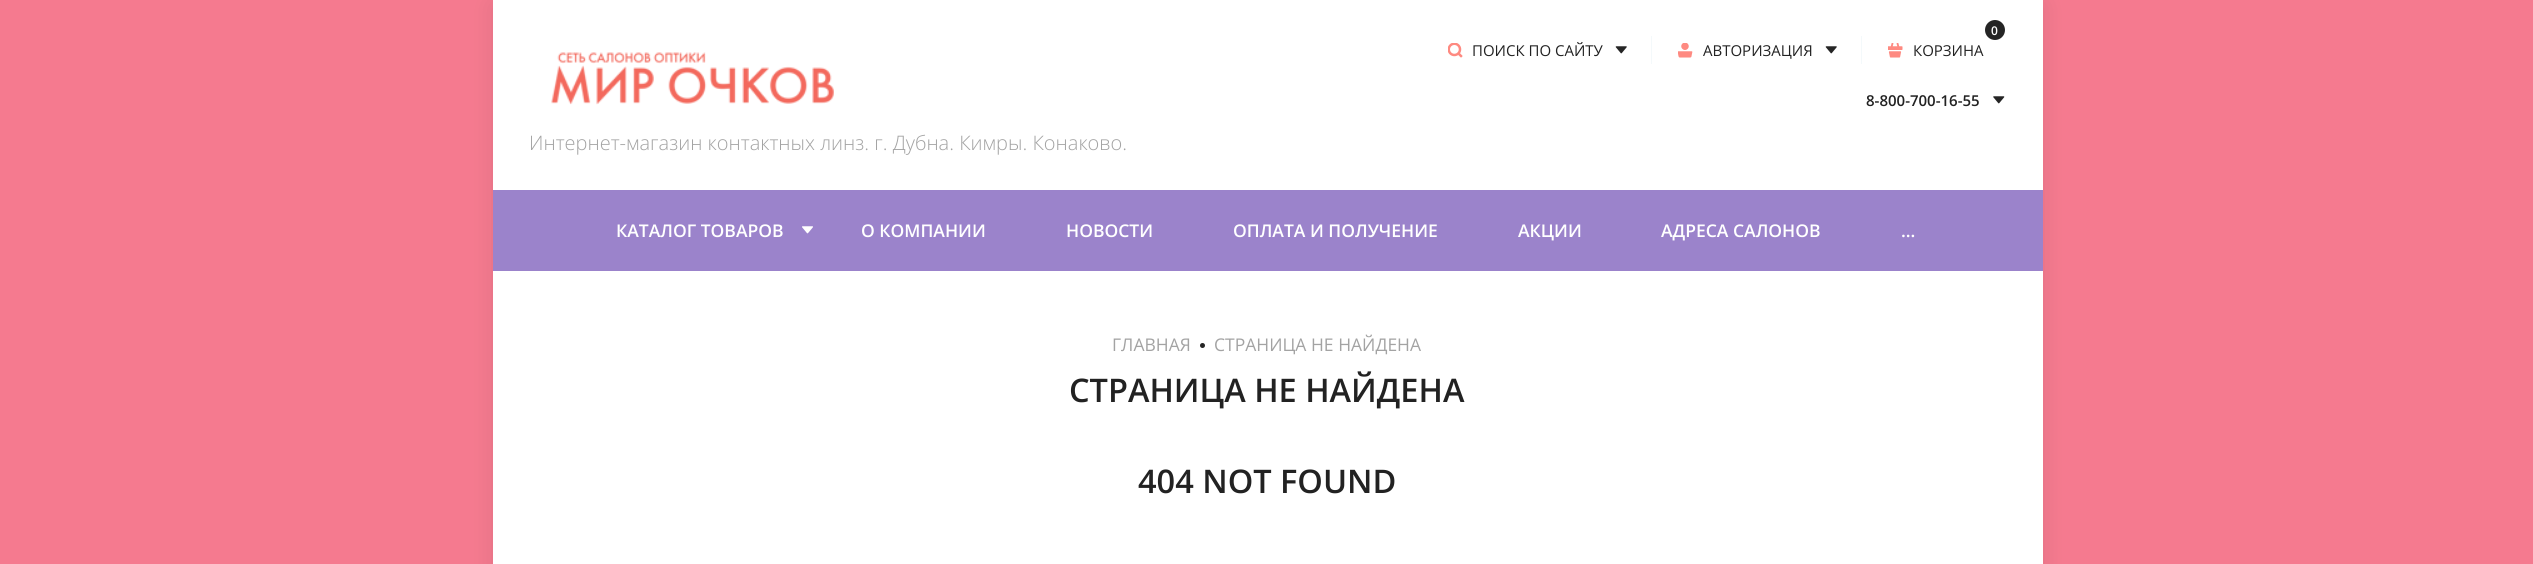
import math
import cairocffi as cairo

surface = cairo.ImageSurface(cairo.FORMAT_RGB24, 2533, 564)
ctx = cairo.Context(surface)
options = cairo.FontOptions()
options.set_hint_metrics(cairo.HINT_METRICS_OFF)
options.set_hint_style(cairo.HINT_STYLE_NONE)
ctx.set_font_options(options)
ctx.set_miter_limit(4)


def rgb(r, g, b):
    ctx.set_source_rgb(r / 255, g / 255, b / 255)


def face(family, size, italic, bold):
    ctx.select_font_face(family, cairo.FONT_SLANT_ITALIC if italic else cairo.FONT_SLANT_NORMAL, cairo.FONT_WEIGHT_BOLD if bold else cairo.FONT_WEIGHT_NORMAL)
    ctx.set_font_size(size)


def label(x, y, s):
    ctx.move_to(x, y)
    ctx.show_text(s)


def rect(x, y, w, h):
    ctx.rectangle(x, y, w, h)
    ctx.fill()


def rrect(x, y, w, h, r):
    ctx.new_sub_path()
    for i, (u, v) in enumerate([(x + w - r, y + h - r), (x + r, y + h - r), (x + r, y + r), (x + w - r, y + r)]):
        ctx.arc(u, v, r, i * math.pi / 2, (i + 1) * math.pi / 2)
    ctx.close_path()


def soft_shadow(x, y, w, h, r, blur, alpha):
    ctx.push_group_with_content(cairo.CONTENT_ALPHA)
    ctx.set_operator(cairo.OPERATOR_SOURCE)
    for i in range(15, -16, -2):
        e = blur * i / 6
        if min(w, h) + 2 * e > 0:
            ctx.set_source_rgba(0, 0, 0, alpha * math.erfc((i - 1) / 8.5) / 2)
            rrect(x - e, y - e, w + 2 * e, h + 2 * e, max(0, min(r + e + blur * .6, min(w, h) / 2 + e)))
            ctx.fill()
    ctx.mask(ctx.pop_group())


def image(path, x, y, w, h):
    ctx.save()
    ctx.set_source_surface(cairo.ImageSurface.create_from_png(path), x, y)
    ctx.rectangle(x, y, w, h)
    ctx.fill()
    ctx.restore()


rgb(245, 122, 143)
ctx.paint()
rgb(0, 0, 0)
soft_shadow(493, 5, 1550, 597, 0, 12.5, 0.08)
rgb(255, 255, 255)
rect(493, 0, 1550, 564)
image('image0.png', 1448, 43, 15, 15)
face('Open Sans', 15, 0, 0)
rgb(34, 34, 34)
label(1472, 56, 'ПОИСК ПО САЙТУ')
image('image1.png', 1615, 46, 12, 8)
rgb(244, 249, 251)
rect(1651, 36, 1, 28)
image('image2.png', 1678, 43, 15, 15)
rgb(34, 34, 34)
label(1703, 56, 'АВТОРИЗАЦИЯ')
image('image1.png', 1825, 46, 12, 8)
rgb(244, 249, 251)
rect(1861, 36, 1, 28)
image('image3.png', 1888, 43, 15, 15)
rgb(37, 37, 37)
ctx.arc(1995, 30, 10, 0, 2 * math.pi)
ctx.fill()
face('Open Sans SemiBold', 12, 0, 0)
rgb(255, 255, 255)
label(1991, 35, '0')
face('Open Sans', 15, 0, 0)
rgb(34, 34, 34)
label(1913, 56, 'КОРЗИНА')
face('Open Sans SemiBold', 15, 0, 0)
label(1866, 106, '8-800-700-16-55')
image('image4.png', 1993, 96, 12, 8)
image('image5.png', 551, 52, 283, 53)
face('Open Sans Light', 20, 0, 0)
rgb(163, 163, 163)
label(529, 150, 'Интернет-магазин контактных линз. г. Дубна. Кимры. Конаково.')
rgb(155, 131, 203)
rect(493, 190, 1550, 81)
image('image6.png', 802, 226, 11, 8)
face('Open Sans SemiBold', 17.5, 0, 0)
rgb(255, 255, 255)
label(616, 237, 'КАТАЛОГ ТОВАРОВ')
label(861, 237, 'О КОМПАНИИ')
label(1066, 237, 'НОВОСТИ')
label(1233, 237, 'ОПЛАТА И ПОЛУЧЕНИЕ')
label(1518, 237, 'АКЦИИ')
label(1661, 237, 'АДРЕСА САЛОНОВ')
label(1901, 237, '...')
face('Open Sans', 17.5, 0, 0)
rgb(163, 163, 163)
label(1112, 351, 'ГЛАВНАЯ')
rgb(37, 37, 37)
ctx.new_path()
ctx.arc(1202.5, 345.5, 2.5, 0, 2 * math.pi)
ctx.fill()
rgb(163, 163, 163)
label(1214, 351, 'СТРАНИЦА НЕ НАЙДЕНА')
face('Open Sans SemiBold', 32.5, 0, 0)
rgb(34, 34, 34)
label(1069, 402, 'СТРАНИЦА НЕ НАЙДЕНА')
label(1138, 493, '404 NOT FOUND')
surface.write_to_png('render.png')
